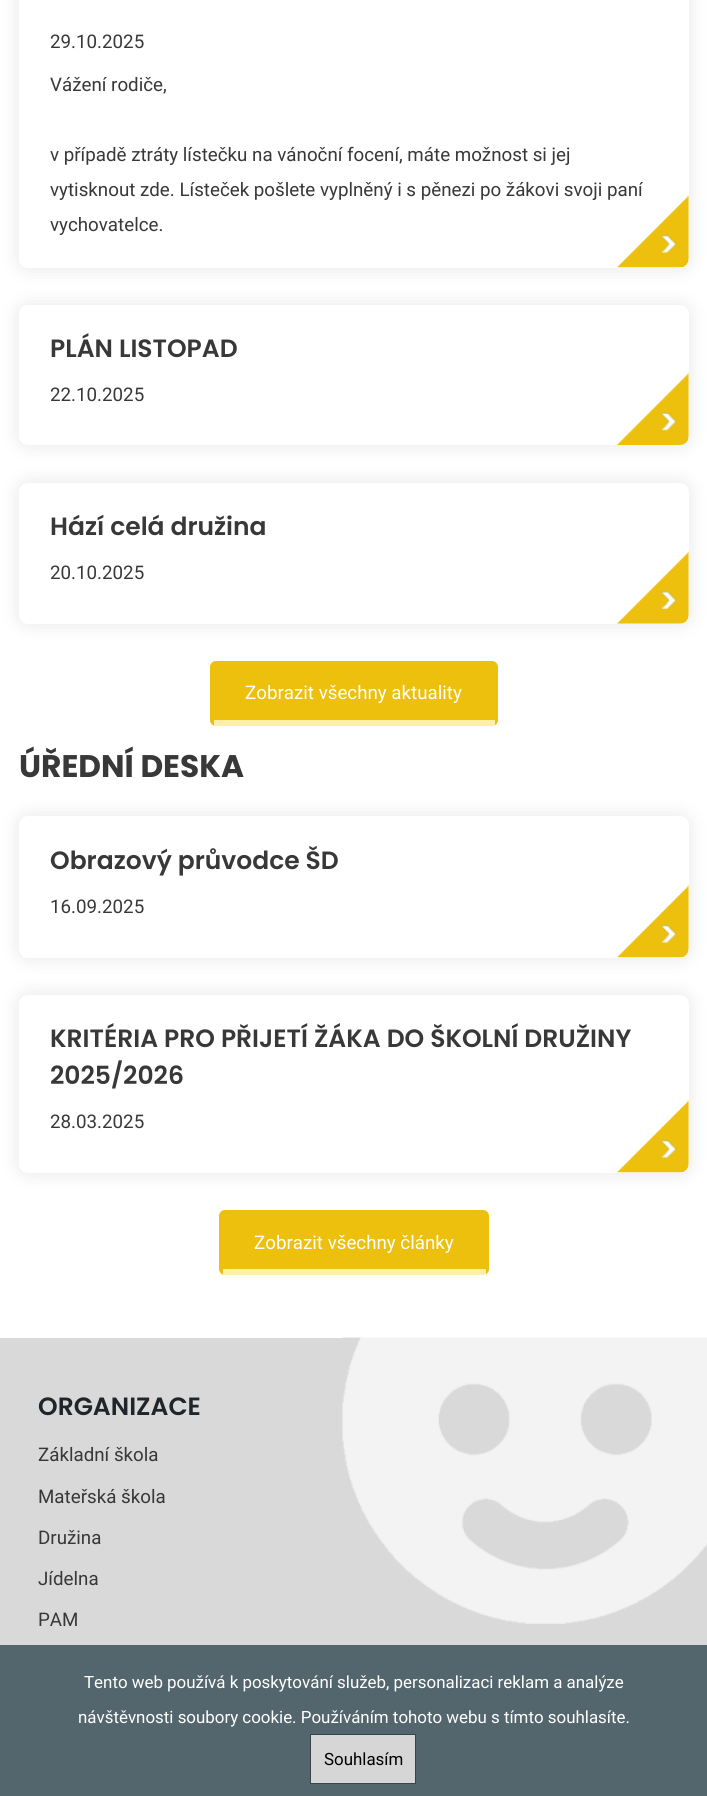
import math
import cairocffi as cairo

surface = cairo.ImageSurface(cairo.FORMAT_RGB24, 707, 1796)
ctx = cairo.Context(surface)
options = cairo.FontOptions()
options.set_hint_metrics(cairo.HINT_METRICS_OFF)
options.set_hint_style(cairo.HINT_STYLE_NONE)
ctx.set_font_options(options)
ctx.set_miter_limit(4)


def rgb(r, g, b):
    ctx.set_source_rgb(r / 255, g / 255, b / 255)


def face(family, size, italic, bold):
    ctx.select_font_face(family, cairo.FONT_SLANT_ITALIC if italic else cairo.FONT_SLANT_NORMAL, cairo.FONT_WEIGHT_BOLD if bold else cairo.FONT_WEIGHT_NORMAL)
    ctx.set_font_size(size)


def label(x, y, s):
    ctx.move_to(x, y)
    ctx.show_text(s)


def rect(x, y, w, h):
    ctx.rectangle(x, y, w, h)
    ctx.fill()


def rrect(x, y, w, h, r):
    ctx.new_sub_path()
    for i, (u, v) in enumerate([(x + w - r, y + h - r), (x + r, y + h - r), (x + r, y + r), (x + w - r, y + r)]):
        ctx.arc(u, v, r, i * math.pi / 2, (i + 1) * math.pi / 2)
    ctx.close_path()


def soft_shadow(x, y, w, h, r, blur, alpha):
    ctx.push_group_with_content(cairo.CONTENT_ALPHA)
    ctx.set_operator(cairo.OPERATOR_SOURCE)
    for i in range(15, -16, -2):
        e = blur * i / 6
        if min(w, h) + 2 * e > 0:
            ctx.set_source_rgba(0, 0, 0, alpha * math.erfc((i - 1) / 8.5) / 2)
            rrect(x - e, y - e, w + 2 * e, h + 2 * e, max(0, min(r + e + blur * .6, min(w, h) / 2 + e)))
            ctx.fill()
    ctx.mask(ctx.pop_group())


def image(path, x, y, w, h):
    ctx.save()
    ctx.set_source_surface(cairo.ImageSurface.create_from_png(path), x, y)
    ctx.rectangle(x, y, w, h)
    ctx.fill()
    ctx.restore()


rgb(255, 255, 255)
ctx.paint()
rgb(0, 0, 0)
soft_shadow(19, -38, 670, 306, 9, 9.5, 0.1)
rgb(255, 255, 255)
rrect(19, -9, 670, 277, 9)
ctx.fill()
image('image0.png', 617, 195, 72, 73)
face('Roboto', 18.75, 0, 0)
rgb(56, 56, 56)
label(50, 48, '29.10.2025')
label(50, 91, 'Vážení rodiče,')
label(50, 161, 'v případě ztráty lístečku na vánoční focení, máte možnost si jej')
label(50, 196, 'vytisknout zde. Lísteček pošlete vyplněný i s pěnezi po žákovi svoji paní')
label(50, 231, 'vychovatelce.')
rgb(0, 0, 0)
soft_shadow(19, 305, 670, 140, 9, 9.5, 0.1)
rgb(255, 255, 255)
rrect(19, 305, 670, 140, 9)
ctx.fill()
image('image1.png', 617, 372, 72, 73)
face('Poppins SemiBold', 25, 0, 0)
rgb(56, 56, 56)
label(50, 357, 'PLÁN LISTOPAD')
face('Roboto', 18.75, 0, 0)
label(50, 401, '22.10.2025')
rgb(0, 0, 0)
soft_shadow(19, 483, 670, 141, 9, 9.5, 0.1)
rgb(255, 255, 255)
rrect(19, 483, 670, 141, 9)
ctx.fill()
image('image2.png', 617, 551, 72, 73)
face('Poppins SemiBold', 25, 0, 0)
rgb(56, 56, 56)
label(50, 535, 'Hází celá družina')
face('Roboto', 18.75, 0, 0)
label(50, 579, '20.10.2025')
rgb(236, 192, 13)
rrect(210, 661, 288, 65, 6)
ctx.fill()
rgb(255, 238, 169)
rect(214, 720, 281, 6)
rgb(255, 255, 255)
label(245, 699, 'Zobrazit všechny aktuality')
face('Poppins', 31.25, 0, 1)
rgb(56, 56, 56)
label(19, 777, 'ÚŘEDNÍ DESKA')
rgb(0, 0, 0)
soft_shadow(19, 816, 670, 142, 9, 9.5, 0.1)
rgb(255, 255, 255)
rrect(19, 816, 670, 142, 9)
ctx.fill()
image('image0.png', 617, 885, 72, 73)
face('Poppins SemiBold', 25, 0, 0)
rgb(56, 56, 56)
label(50, 869, 'Obrazový průvodce ŠD')
face('Roboto', 18.75, 0, 0)
label(50, 913, '16.09.2025')
rgb(0, 0, 0)
soft_shadow(19, 995, 670, 178, 9, 9.5, 0.1)
rgb(255, 255, 255)
rrect(19, 995, 670, 178, 9)
ctx.fill()
image('image0.png', 617, 1100, 72, 73)
face('Poppins SemiBold', 25, 0, 0)
rgb(56, 56, 56)
label(50, 1047, 'KRITÉRIA PRO PŘIJETÍ ŽÁKA DO ŠKOLNÍ DRUŽINY')
label(50, 1084, '2025/2026')
face('Roboto', 18.75, 0, 0)
label(50, 1128, '28.03.2025')
rgb(236, 192, 13)
rrect(219, 1210, 270, 65, 6)
ctx.fill()
rgb(255, 238, 169)
rect(223, 1269, 263, 6)
rgb(255, 255, 255)
label(254, 1249, 'Zobrazit všechny články')
rgb(217, 217, 217)
rect(0, 1338, 707, 307)
image('image3.png', 342, 1337, 365, 287)
face('Poppins SemiBold', 25, 0, 0)
rgb(33, 37, 41)
label(38, 1415, 'ORGANIZACE')
face('Roboto', 18.75, 0, 0)
rgb(56, 56, 56)
label(38, 1461, 'Základní škola')
label(38, 1503, 'Mateřská škola')
label(38, 1544, 'Družina')
label(38, 1585, 'Jídelna')
label(38, 1626, 'PAM')
rgb(83, 101, 109)
rect(0, 1645, 707, 151)
face('Roboto', 16.9, 0, 0)
rgb(255, 255, 255)
label(84, 1688, 'Tento web používá k poskytování služeb, personalizaci reklam a analýze')
label(78, 1723, 'návštěvnosti soubory cookie. Používáním tohoto webu s tímto souhlasíte.')
rgb(214, 214, 214)
ctx.rectangle(310.5, 1734.5, 105, 49)
ctx.fill_preserve()
rgb(57, 68, 72)
ctx.set_line_width(1)
ctx.stroke()
rgb(0, 0, 0)
label(324, 1765, 'Souhlasím')
surface.write_to_png('render.png')
